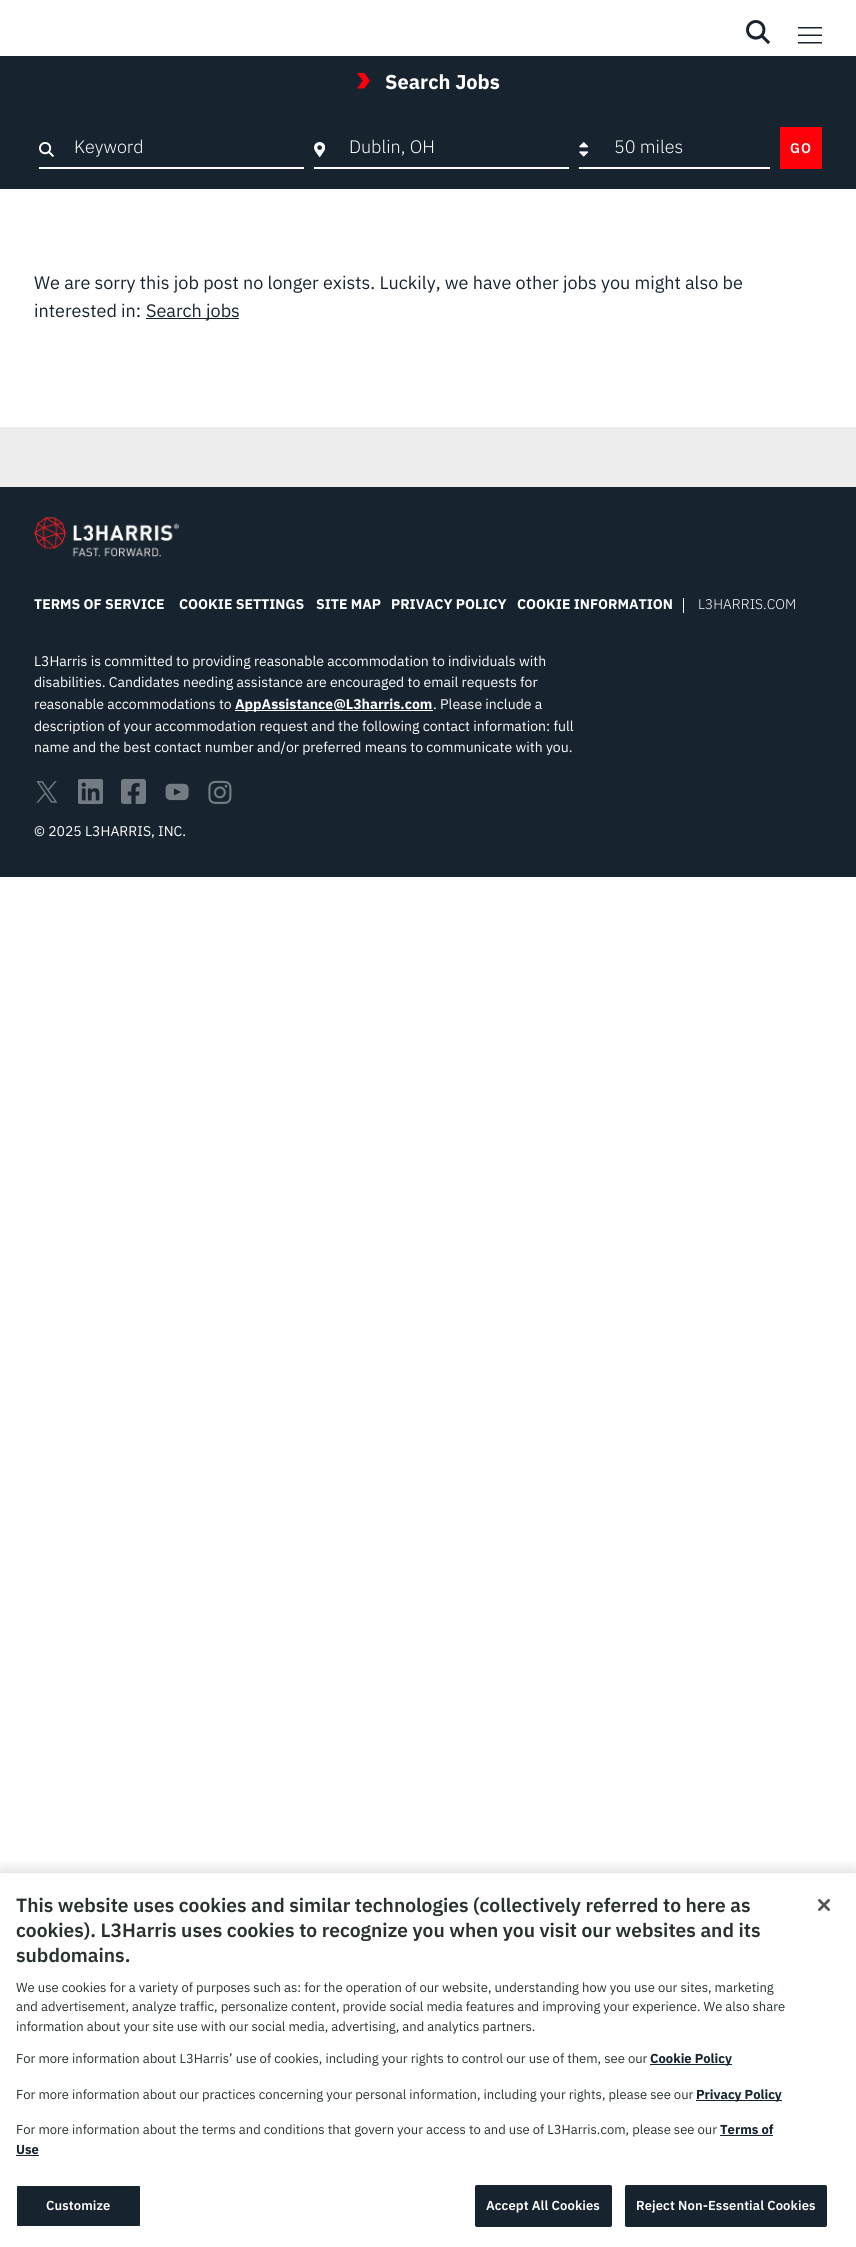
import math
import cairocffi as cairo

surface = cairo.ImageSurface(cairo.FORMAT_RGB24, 856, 2247)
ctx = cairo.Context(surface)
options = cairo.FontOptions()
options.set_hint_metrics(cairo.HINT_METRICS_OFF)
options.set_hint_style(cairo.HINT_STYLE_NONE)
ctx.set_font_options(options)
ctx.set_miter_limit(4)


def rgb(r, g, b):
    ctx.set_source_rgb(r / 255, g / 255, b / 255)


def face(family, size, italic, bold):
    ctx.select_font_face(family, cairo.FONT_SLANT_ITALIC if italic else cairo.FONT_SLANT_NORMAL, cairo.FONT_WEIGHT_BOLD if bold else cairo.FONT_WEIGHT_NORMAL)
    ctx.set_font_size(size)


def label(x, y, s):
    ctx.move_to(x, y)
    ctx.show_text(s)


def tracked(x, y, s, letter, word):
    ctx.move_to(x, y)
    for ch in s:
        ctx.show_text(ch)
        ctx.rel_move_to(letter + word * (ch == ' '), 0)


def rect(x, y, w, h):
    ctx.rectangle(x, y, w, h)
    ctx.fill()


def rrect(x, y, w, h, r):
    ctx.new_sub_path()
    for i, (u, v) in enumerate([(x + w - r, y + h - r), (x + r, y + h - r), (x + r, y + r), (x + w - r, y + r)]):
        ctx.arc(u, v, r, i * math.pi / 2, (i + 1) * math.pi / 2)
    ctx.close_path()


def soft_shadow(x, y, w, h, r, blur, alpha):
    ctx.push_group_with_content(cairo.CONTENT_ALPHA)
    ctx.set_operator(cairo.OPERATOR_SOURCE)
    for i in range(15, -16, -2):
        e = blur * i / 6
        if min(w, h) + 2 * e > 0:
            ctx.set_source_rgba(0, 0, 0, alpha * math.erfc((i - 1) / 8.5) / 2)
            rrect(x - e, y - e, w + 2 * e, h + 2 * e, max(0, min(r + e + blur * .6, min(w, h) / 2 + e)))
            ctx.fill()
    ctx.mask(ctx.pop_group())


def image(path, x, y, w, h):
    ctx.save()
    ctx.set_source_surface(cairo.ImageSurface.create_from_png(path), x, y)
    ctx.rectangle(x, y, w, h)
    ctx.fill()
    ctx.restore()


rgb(255, 255, 255)
ctx.paint()
image('image0.png', 746, 20, 24, 24)
image('image1.png', 798, 27, 24, 17)
rgb(23, 36, 48)
rect(0, 56, 856, 133)
image('image2.png', 357, 73, 13, 16)
face('IBM Plex Sans', 20, 0, 1)
rgb(255, 255, 255)
label(385, 89, 'Search Jobs')
rect(39, 167, 265, 2)
image('image3.png', 39, 142, 15, 15)
face('IBM Plex Sans Light', 18, 0, 0)
label(74, 153, 'Keyword')
rect(314, 167, 255, 2)
image('image4.png', 314, 142, 11, 15)
label(349, 153, 'Dublin, OH')
rect(579, 167, 191, 2)
image('image5.png', 579, 142, 10, 15)
label(614, 153, '50 miles')
rgb(255, 0, 10)
rect(780, 127, 42, 42)
face('IBM Plex Sans SemiBold', 14, 0, 0)
rgb(255, 255, 255)
tracked(790, 153, 'GO', 1, 0)
face('IBM Plex Sans', 18, 0, 0)
rgb(23, 36, 48)
label(34, 289, 'We are sorry this job post no longer exists. Luckily, we have other jobs you might also be')
label(34, 317, 'interested in:')
rect(146, 318, 93, 1)
label(146, 317, 'Search jobs')
rgb(237, 237, 237)
rect(0, 427, 856, 60)
rgb(23, 36, 48)
rect(0, 487, 856, 390)
image('image6.png', 34, 517, 145, 40)
face('IBM Plex Sans', 14, 0, 1)
rgb(255, 255, 255)
label(34, 609, 'TERMS OF SERVICE')
label(179, 609, 'COOKIE SETTINGS')
label(316, 609, 'SITE MAP')
label(391, 609, 'PRIVACY POLICY')
label(517, 609, 'COOKIE INFORMATION')
rect(683, 598, 1, 15)
face('IBM Plex Sans Light', 14, 0, 0)
label(698, 609, 'L3HARRIS.COM')
face('IBM Plex Sans', 14, 0, 0)
label(34, 666, 'L3Harris is committed to providing reasonable accommodation to individuals with')
label(34, 687, 'disabilities. Candidates needing assistance are encouraged to email requests for')
label(34, 709, 'reasonable accommodations to')
rect(235, 710, 198, 1)
face('IBM Plex Sans', 14, 0, 1)
label(235, 709, 'AppAssistance@L3harris.com')
face('IBM Plex Sans', 14, 0, 0)
label(433, 709, '. Please include a')
label(34, 731, 'description of your accommodation request and the following contact information: full')
label(34, 752, 'name and the best contact number and/or preferred means to communicate with you.')
image('image7.png', 36, 781, 22, 22)
image('image8.png', 78, 779, 25, 25)
image('image9.png', 121, 779, 25, 25)
image('image10.png', 165, 783, 24, 18)
image('image11.png', 208, 780, 24, 24)
label(34, 836, '© 2025 L3HARRIS, INC.')
ctx.save()
ctx.rectangle(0, 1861, 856, 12)
ctx.clip()
rgb(0, 0, 0)
soft_shadow(0, 1873, 856, 374, 0, 9, 0.2)
ctx.restore()
face('IBM Plex Sans SemiBold', 19.2, 0, 0)
rgb(40, 48, 48)
label(16, 1912, 'This website uses cookies and similar technologies (collectively referred to here as')
label(16, 1937, 'cookies). L3Harris uses cookies to recognize you when you visit our websites and its')
label(16, 1962, 'subdomains.')
face('IBM Plex Sans', 13, 0, 0)
label(16, 1992, 'We use cookies for a variety of purposes such as: for the operation of our website, understanding how you use our sites, marketing')
label(16, 2011, 'and advertisement, analyze traffic, personalize content, provide social media features and improving your experience. We also share')
label(16, 2031, 'information about your site use with our social media, advertising, and analytics partners.')
label(16, 2063, 'For more information about L3Harris’ use of cookies, including your rights to control our use of them, see our')
rgb(23, 36, 48)
rect(650, 2064, 82, 1)
face('IBM Plex Sans', 13, 0, 1)
label(650, 2063, 'Cookie Policy')
face('IBM Plex Sans', 13, 0, 0)
rgb(40, 48, 48)
label(16, 2099, 'For more information about our practices concerning your personal information, including your rights, please see our')
rgb(23, 36, 48)
rect(696, 2100, 86, 1)
face('IBM Plex Sans', 13, 0, 1)
label(696, 2099, 'Privacy Policy')
face('IBM Plex Sans', 13, 0, 0)
rgb(40, 48, 48)
label(16, 2134, 'For more information about the terms and conditions that govern your access to and use of L3Harris.com, please see our')
face('IBM Plex Sans', 13, 0, 1)
rgb(23, 36, 48)
label(720, 2134, 'Terms of')
rect(720, 2135, 53, 1)
label(16, 2154, 'Use')
rect(16, 2155, 23, 1)
rrect(16.5, 2185.5, 124, 41, 1.5)
ctx.fill_preserve()
rgb(255, 255, 255)
ctx.set_line_width(1)
ctx.stroke()
face('IBM Plex Sans SemiBold', 13, 0, 0)
tracked(46, 2210, 'Customize', 0.1, 0)
rgb(23, 36, 48)
rrect(475.5, 2185.5, 136, 41, 1.5)
ctx.fill_preserve()
ctx.stroke()
rgb(255, 255, 255)
tracked(486, 2210, 'Accept All Cookies', 0.1, 0)
rgb(23, 36, 48)
rrect(625.5, 2185.5, 201, 41, 1.5)
ctx.fill_preserve()
ctx.stroke()
rgb(255, 255, 255)
tracked(636, 2210, 'Reject Non-Essential Cookies', 0.1, 0)
image('image12.png', 818, 1899, 12, 12)
surface.write_to_png('render.png')
